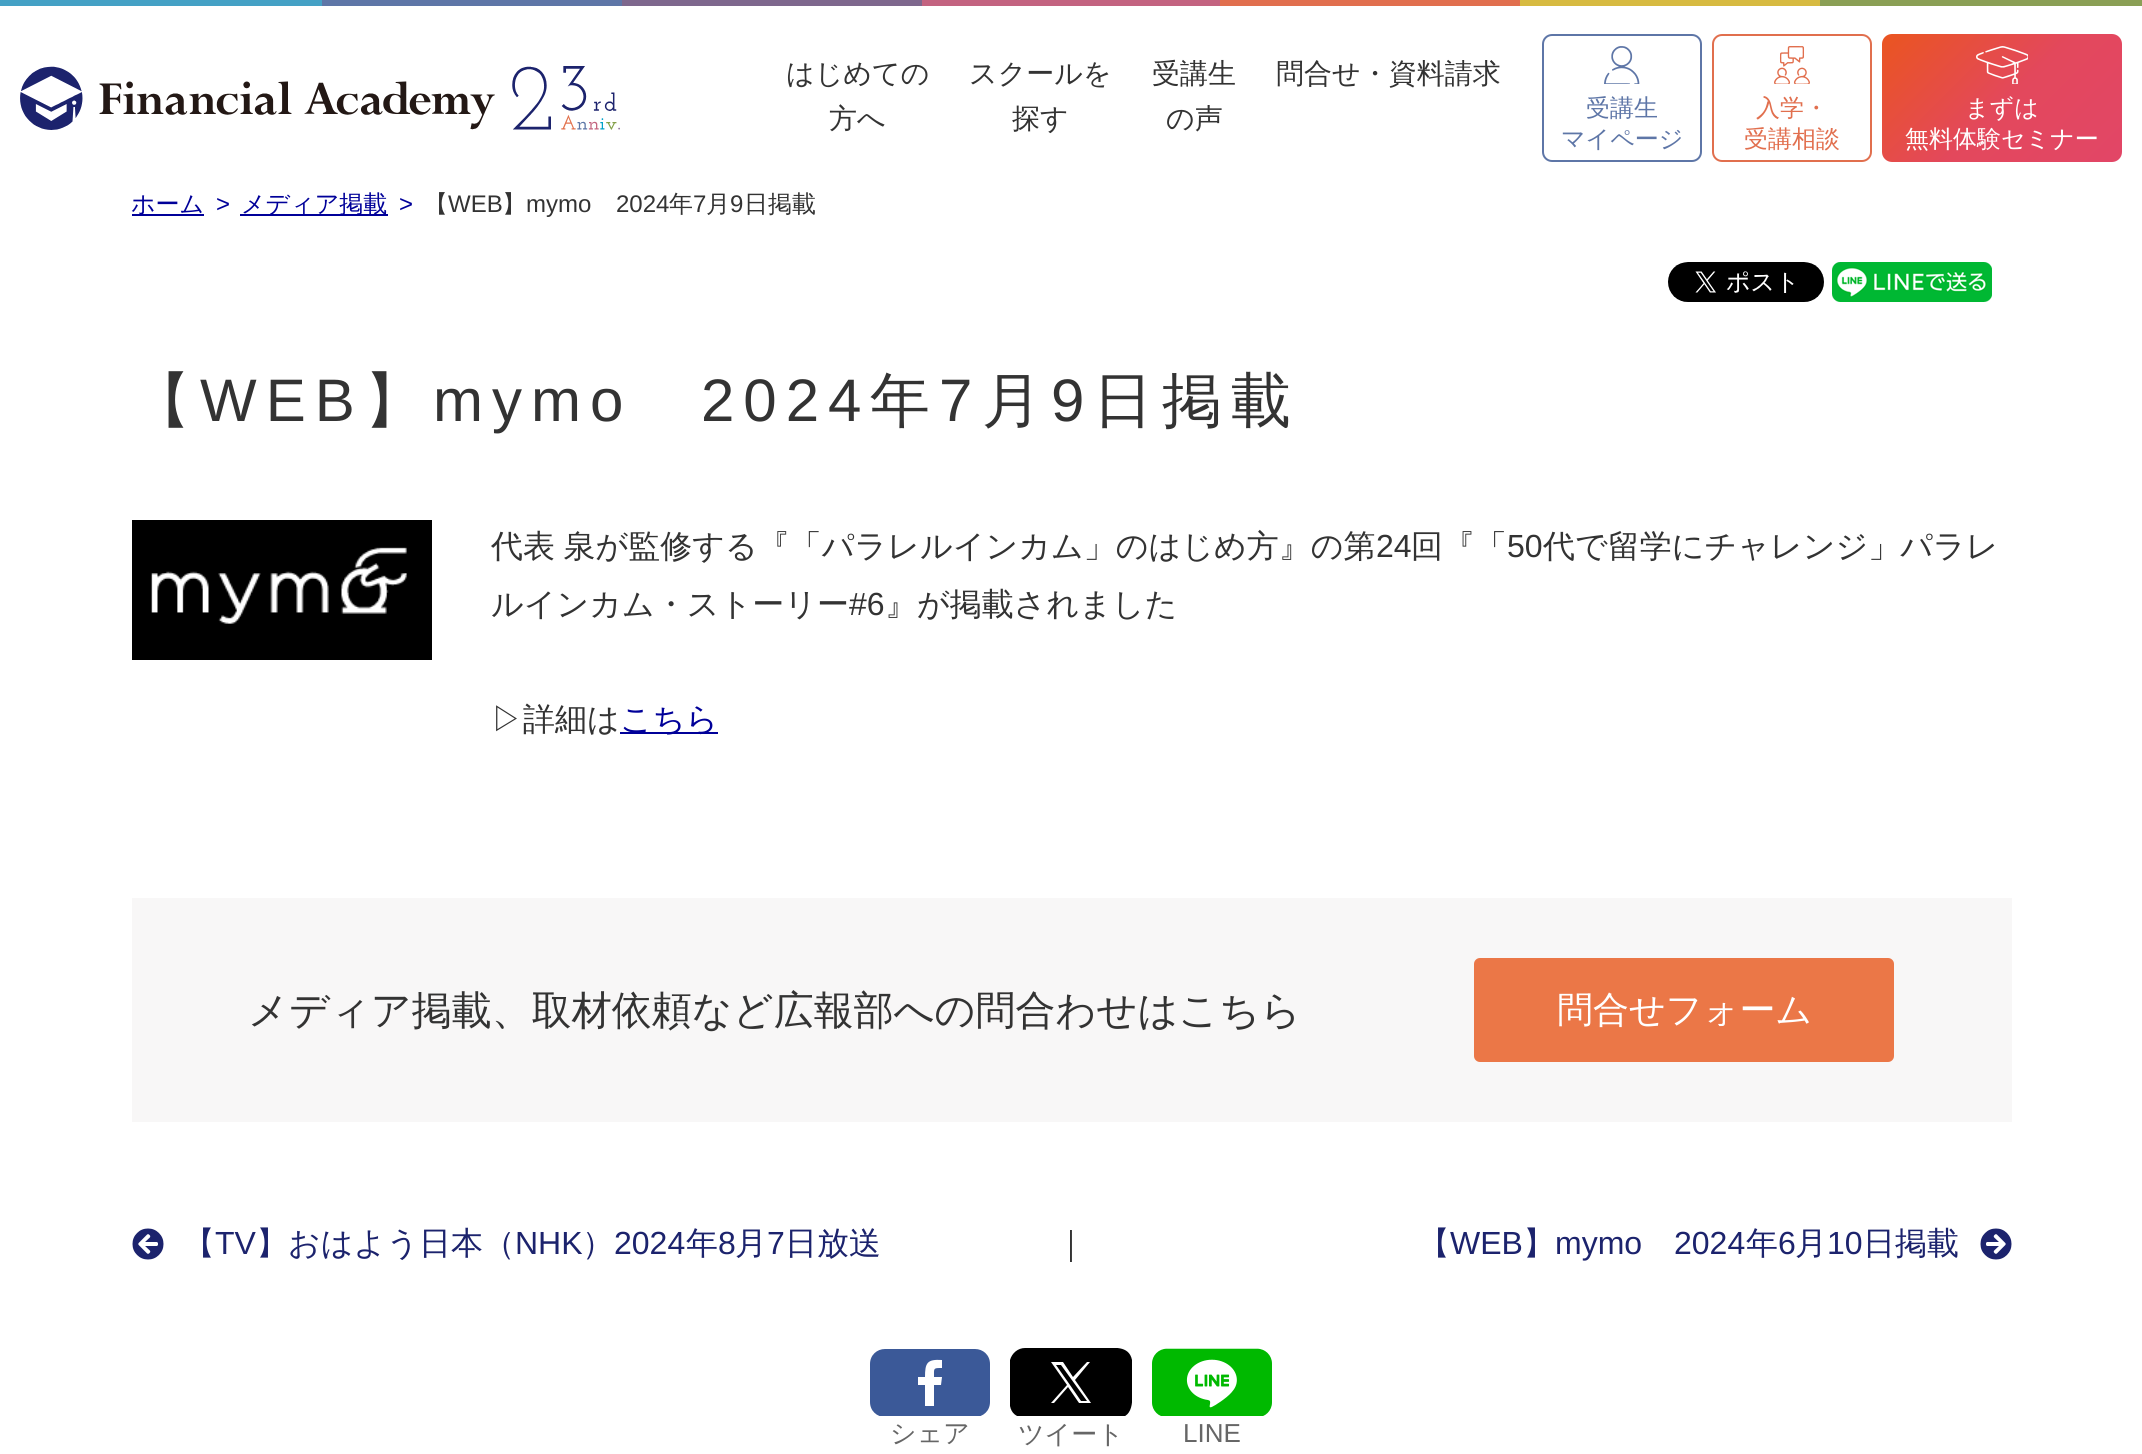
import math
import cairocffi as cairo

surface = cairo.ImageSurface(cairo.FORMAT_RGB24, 2142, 1454)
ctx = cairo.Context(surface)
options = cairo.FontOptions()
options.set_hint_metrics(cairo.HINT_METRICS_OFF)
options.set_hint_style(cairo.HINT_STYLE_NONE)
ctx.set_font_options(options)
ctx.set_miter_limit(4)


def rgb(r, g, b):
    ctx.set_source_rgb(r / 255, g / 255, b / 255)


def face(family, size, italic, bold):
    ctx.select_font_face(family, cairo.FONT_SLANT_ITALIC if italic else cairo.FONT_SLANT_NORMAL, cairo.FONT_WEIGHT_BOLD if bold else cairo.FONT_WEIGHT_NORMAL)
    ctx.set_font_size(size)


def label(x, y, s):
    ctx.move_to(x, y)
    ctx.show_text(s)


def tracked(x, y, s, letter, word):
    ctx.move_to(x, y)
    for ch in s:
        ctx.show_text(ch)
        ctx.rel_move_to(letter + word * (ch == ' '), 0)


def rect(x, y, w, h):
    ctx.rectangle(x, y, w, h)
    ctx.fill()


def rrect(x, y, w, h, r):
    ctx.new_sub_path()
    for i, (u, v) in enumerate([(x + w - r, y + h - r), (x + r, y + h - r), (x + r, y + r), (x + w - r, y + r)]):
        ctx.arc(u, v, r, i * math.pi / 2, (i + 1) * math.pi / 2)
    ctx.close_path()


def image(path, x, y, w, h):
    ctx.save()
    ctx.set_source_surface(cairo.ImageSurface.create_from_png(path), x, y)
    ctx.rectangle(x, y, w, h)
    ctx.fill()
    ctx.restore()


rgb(255, 255, 255)
ctx.paint()
rgb(68, 161, 197)
rect(0, 0, 322, 6)
rgb(94, 118, 167)
rect(322, 0, 300, 6)
rgb(126, 103, 141)
rect(622, 0, 300, 6)
rgb(195, 99, 128)
rect(922, 0, 298, 6)
rgb(225, 111, 78)
rect(1220, 0, 300, 6)
rgb(215, 186, 65)
rect(1520, 0, 300, 6)
rgb(138, 159, 85)
rect(1820, 0, 322, 6)
image('image0.png', 20, 66, 600, 64)
face('WenQuanYi Zen Hei Medium', 28, 0, 0)
rgb(51, 51, 51)
label(786, 83, 'はじめての')
label(829, 128, '方へ')
label(969, 83, 'スクールを')
label(1012, 128, '探す')
label(1152, 83, '受講生')
label(1166, 128, 'の声')
label(1276, 83, '問合せ・資料請求')
rrect(1543, 35, 158, 126, 9)
rgb(94, 118, 167)
ctx.stroke()
image('image1.png', 1604, 46, 36, 38)
face('WenQuanYi Zen Hei Medium', 24, 0, 0)
label(1586, 116, '受講生')
label(1561, 147, 'マイページ')
rrect(1713, 35, 158, 126, 9)
rgb(225, 111, 78)
ctx.stroke()
image('image2.png', 1774, 46, 36, 38)
label(1756, 116, '入学・')
label(1744, 147, '受講相談')
gradient = cairo.LinearGradient(1910, 6, 2094, 190)
gradient.add_color_stop_rgba(0, 0.918, 0.333, 0.125, 1)
gradient.add_color_stop_rgba(0.52, 0.89, 0.282, 0.361, 1)
gradient.add_color_stop_rgba(1, 0.886, 0.275, 0.404, 1)
ctx.set_source(gradient)
rrect(1882, 34, 240, 128, 10)
ctx.fill()
image('image3.png', 1976, 46, 52, 38)
rgb(255, 255, 255)
label(1965, 116, 'まずは')
label(1905, 147, '無料体験セミナー')
rgb(0, 0, 153)
rect(132, 214, 72, 2)
label(131, 212, 'ホーム')
face('Liberation Sans', 24, 0, 0)
label(216, 212, '>')
rect(240, 214, 148, 2)
face('WenQuanYi Zen Hei Medium', 24, 0, 0)
label(241, 212, 'メディア掲載')
face('Liberation Sans', 24, 0, 0)
label(399, 212, '>')
face('WenQuanYi Zen Hei Medium', 24, 0, 0)
rgb(51, 51, 51)
label(424, 212, '【')
face('Liberation Sans', 24, 0, 0)
label(448, 212, 'WEB')
face('WenQuanYi Zen Hei Medium', 24, 0, 0)
label(502, 212, '】')
face('Liberation Sans', 24, 0, 0)
label(526, 212, 'mymo')
label(616, 212, '2024')
face('WenQuanYi Zen Hei Medium', 24, 0, 0)
label(669, 212, '年')
face('Liberation Sans', 24, 0, 0)
label(693, 212, '7')
face('WenQuanYi Zen Hei Medium', 24, 0, 0)
label(706, 212, '月')
face('Liberation Sans', 24, 0, 0)
label(730, 212, '9')
face('WenQuanYi Zen Hei Medium', 24, 0, 0)
label(744, 212, '日掲載')
image('image4.png', 1668, 262, 156, 40)
image('image5.png', 1832, 262, 160, 40)
face('WenQuanYi Zen Hei Medium', 60, 0, 0)
tracked(131, 421, '【', 9, 0)
face('Liberation Sans', 60, 0, 0)
tracked(200, 421, 'WEB', 9, 0)
face('WenQuanYi Zen Hei Medium', 60, 0, 0)
tracked(364, 421, '】', 9, 0)
face('Liberation Sans', 60, 0, 0)
tracked(433, 421, 'mymo', 9, 0)
tracked(701, 421, '2024', 9, 0)
face('WenQuanYi Zen Hei Medium', 60, 0, 0)
tracked(870, 421, '年', 9, 0)
face('Liberation Sans', 60, 0, 0)
tracked(939, 421, '7', 9, 0)
face('WenQuanYi Zen Hei Medium', 60, 0, 0)
tracked(982, 421, '月', 9, 0)
face('Liberation Sans', 60, 0, 0)
tracked(1051, 421, '9', 9, 0)
face('WenQuanYi Zen Hei Medium', 60, 0, 0)
tracked(1093, 421, '日掲載', 9, 0)
image('image6.png', 132, 520, 300, 140)
face('WenQuanYi Zen Hei Medium', 32, 0, 0)
tracked(491, 557, '代表 泉が監修する『「パラレルインカム」のはじめ方』の第', 0, -1)
face('Liberation Sans', 32, 0, 0)
label(1376, 557, '24')
face('WenQuanYi Zen Hei Medium', 32, 0, 0)
label(1411, 557, '回『「')
face('Liberation Sans', 32, 0, 0)
label(1507, 557, '50')
face('WenQuanYi Zen Hei Medium', 32, 0, 0)
label(1543, 557, '代で留学にチャレンジ」パラレ')
label(491, 615, 'ルインカム・ストーリー')
face('Liberation Sans', 32, 0, 0)
label(849, 615, '#6')
face('WenQuanYi Zen Hei Medium', 32, 0, 0)
label(885, 615, '』が掲載されました')
label(491, 730, '▷詳細は')
rgb(0, 0, 153)
rect(620, 732, 98, 2)
label(620, 730, 'こちら')
rgb(248, 247, 247)
rect(132, 898, 1880, 224)
face('WenQuanYi Zen Hei Medium', 40, 0, 0)
rgb(51, 51, 51)
label(248, 1024, 'メディア掲載、取材依頼など広報部への問合わせはこちら')
rgb(235, 119, 71)
rrect(1474, 958, 420, 104, 6)
ctx.fill()
face('WenQuanYi Zen Hei Medium', 36, 0, 0)
rgb(255, 255, 255)
label(1557, 1022, '問合せフォーム')
image('image7.png', 132, 1228, 32, 32)
face('WenQuanYi Zen Hei Medium', 32, 0, 0)
rgb(28, 35, 109)
label(183, 1254, '【')
face('Liberation Sans', 32, 0, 0)
label(215, 1254, 'TV')
face('WenQuanYi Zen Hei Medium', 32, 0, 0)
label(256, 1254, '】おはよう日本（')
face('Liberation Sans', 32, 0, 0)
label(515, 1254, 'NHK')
face('WenQuanYi Zen Hei Medium', 32, 0, 0)
label(582, 1254, '）')
face('Liberation Sans', 32, 0, 0)
label(614, 1254, '2024')
face('WenQuanYi Zen Hei Medium', 32, 0, 0)
label(686, 1254, '年')
face('Liberation Sans', 32, 0, 0)
label(718, 1254, '8')
face('WenQuanYi Zen Hei Medium', 32, 0, 0)
label(735, 1254, '月')
face('Liberation Sans', 32, 0, 0)
label(767, 1254, '7')
face('WenQuanYi Zen Hei Medium', 32, 0, 0)
label(785, 1254, '日放送')
rgb(51, 51, 51)
label(1055, 1254, '｜')
rgb(28, 35, 109)
label(1418, 1254, '【')
face('Liberation Sans', 32, 0, 0)
label(1450, 1254, 'WEB')
face('WenQuanYi Zen Hei Medium', 32, 0, 0)
label(1523, 1254, '】')
face('Liberation Sans', 32, 0, 0)
label(1555, 1254, 'mymo')
label(1674, 1254, '2024')
face('WenQuanYi Zen Hei Medium', 32, 0, 0)
label(1746, 1254, '年')
face('Liberation Sans', 32, 0, 0)
label(1778, 1254, '6')
face('WenQuanYi Zen Hei Medium', 32, 0, 0)
label(1795, 1254, '月')
face('Liberation Sans', 32, 0, 0)
label(1827, 1254, '10')
face('WenQuanYi Zen Hei Medium', 32, 0, 0)
label(1863, 1254, '日掲載')
image('image8.png', 1980, 1228, 32, 32)
face('WenQuanYi Zen Hei Medium', 26, 0, 0)
rgb(102, 102, 102)
label(890, 1442, 'シェア')
ctx.save()
ctx.rectangle(870, 1348, 120, 68)
ctx.clip()
rgb(59, 89, 152)
ctx.new_path()
ctx.move_to(975, 1417)
ctx.line_to(885, 1417)
ctx.curve_to(877, 1417, 870, 1411, 870, 1402)
ctx.line_to(870, 1364)
ctx.curve_to(870, 1355, 877, 1349, 885, 1349)
ctx.line_to(975, 1349)
ctx.curve_to(983, 1349, 990, 1355, 990, 1364)
ctx.line_to(990, 1402)
ctx.curve_to(990, 1411, 983, 1417, 975, 1417)
ctx.close_path()
ctx.fill()
ctx.restore()
rgb(255, 255, 255)
ctx.new_path()
ctx.move_to(934, 1406)
ctx.line_to(934, 1385)
ctx.line_to(941, 1385)
ctx.line_to(942, 1377)
ctx.line_to(934, 1377)
ctx.curve_to(934, 1368, 933, 1368, 942, 1368)
ctx.line_to(942, 1360)
ctx.curve_to(927, 1359, 925, 1363, 925, 1377)
ctx.line_to(918, 1377)
ctx.line_to(918, 1385)
ctx.line_to(925, 1385)
ctx.line_to(925, 1406)
ctx.close_path()
ctx.fill()
rgb(102, 102, 102)
label(1018, 1443, 'ツイート')
ctx.save()
ctx.rectangle(1010, 1348, 122, 68)
ctx.clip()
rgb(0, 0, 0)
ctx.new_path()
ctx.move_to(1117, 1418)
ctx.line_to(1040, 1418)
ctx.curve_to(1029, 1418, 1013, 1421, 1010, 1406)
ctx.line_to(1010, 1360)
ctx.curve_to(1012, 1353, 1018, 1348, 1025, 1348)
ctx.line_to(1102, 1348)
ctx.curve_to(1113, 1348, 1129, 1345, 1132, 1360)
ctx.line_to(1132, 1383)
ctx.curve_to(1132, 1395, 1136, 1418, 1117, 1418)
ctx.close_path()
ctx.fill()
ctx.restore()
rgb(255, 255, 255)
ctx.new_path()
ctx.move_to(1075, 1380)
ctx.line_to(1090, 1362)
ctx.line_to(1087, 1362)
ctx.line_to(1073, 1377)
ctx.line_to(1063, 1362)
ctx.line_to(1051, 1362)
ctx.line_to(1067, 1385)
ctx.line_to(1051, 1403)
ctx.line_to(1054, 1403)
ctx.line_to(1068, 1387)
ctx.line_to(1079, 1403)
ctx.line_to(1091, 1403)
ctx.close_path()
ctx.move_to(1070, 1385)
ctx.line_to(1056, 1365)
ctx.line_to(1061, 1365)
ctx.line_to(1087, 1401)
ctx.line_to(1081, 1401)
ctx.close_path()
ctx.fill()
image('image9.png', 1152, 1348, 120, 68)
face('Liberation Sans', 26, 0, 0)
rgb(102, 102, 102)
label(1183, 1442, 'LINE')
surface.write_to_png('render.png')
